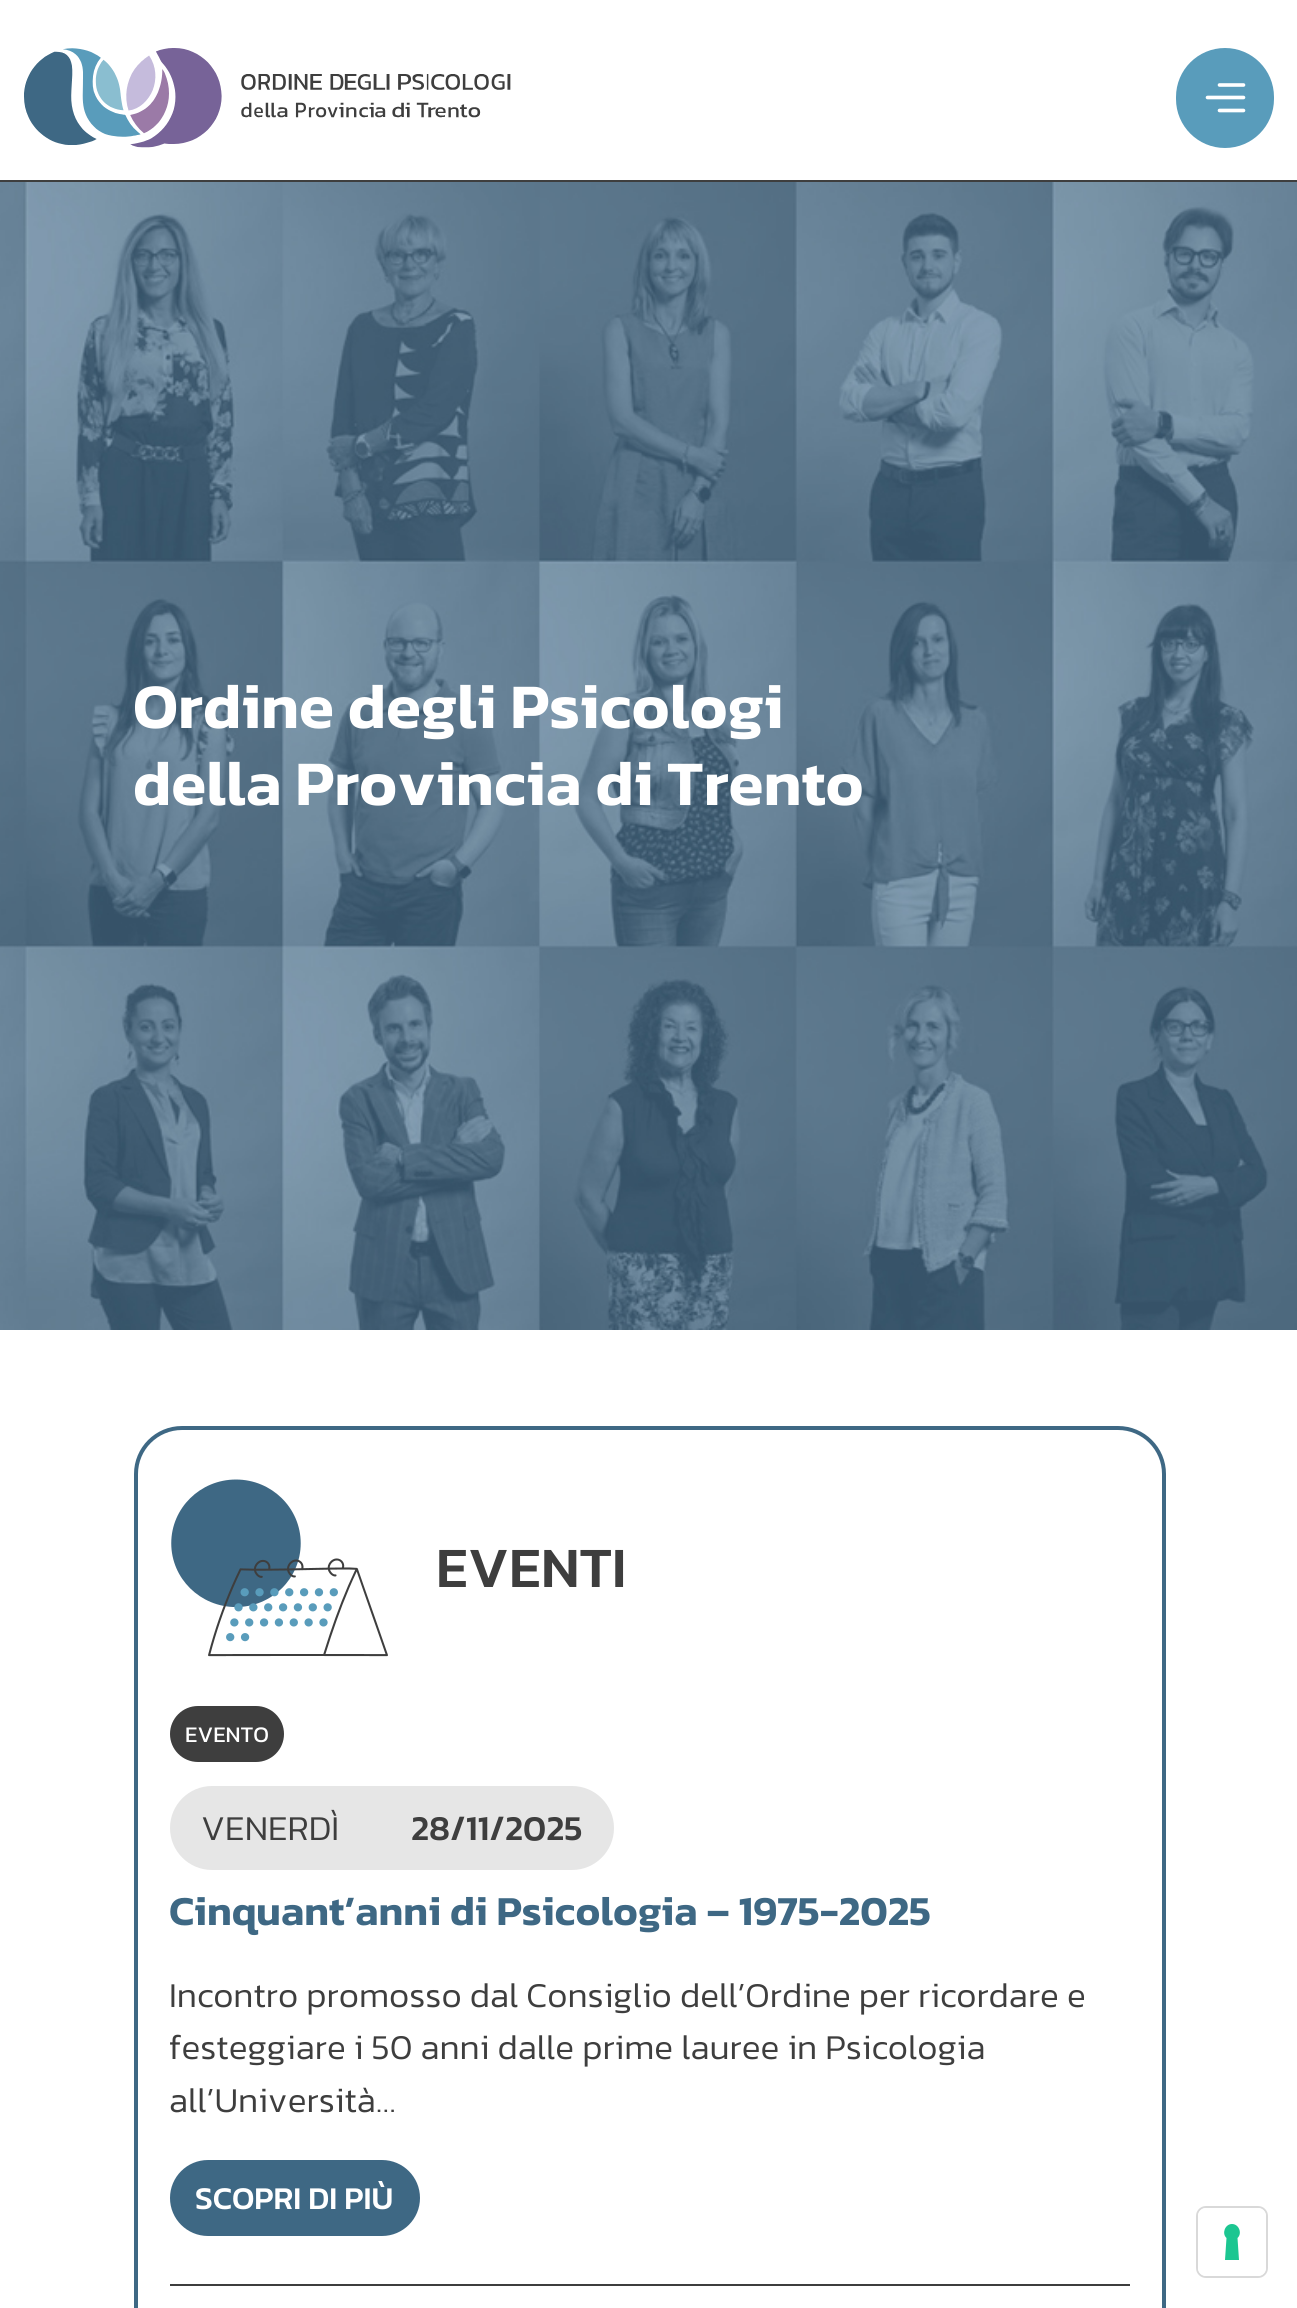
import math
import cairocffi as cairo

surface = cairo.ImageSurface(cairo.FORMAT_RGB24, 1297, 2308)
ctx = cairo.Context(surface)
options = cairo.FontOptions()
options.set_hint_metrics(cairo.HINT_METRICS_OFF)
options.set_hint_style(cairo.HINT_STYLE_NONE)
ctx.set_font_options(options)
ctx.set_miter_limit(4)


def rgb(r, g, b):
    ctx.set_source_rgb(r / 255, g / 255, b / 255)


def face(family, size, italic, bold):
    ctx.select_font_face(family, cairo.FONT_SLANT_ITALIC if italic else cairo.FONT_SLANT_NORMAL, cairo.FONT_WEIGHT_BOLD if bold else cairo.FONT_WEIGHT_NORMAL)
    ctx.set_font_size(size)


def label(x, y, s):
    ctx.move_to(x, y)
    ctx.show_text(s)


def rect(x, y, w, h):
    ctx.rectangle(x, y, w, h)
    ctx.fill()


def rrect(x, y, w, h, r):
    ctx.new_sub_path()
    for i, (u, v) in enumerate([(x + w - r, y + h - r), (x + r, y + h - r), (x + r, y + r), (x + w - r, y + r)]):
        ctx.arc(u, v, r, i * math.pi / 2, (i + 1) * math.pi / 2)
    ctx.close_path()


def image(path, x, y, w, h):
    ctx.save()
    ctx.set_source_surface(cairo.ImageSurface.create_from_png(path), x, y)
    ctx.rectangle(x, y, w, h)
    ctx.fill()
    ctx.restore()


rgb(255, 255, 255)
ctx.paint()
rgb(62, 62, 62)
rect(0, 180, 1297, 2)
image('image0.png', 24, 48, 487, 100)
rgb(89, 156, 187)
rrect(1176, 48, 98, 100, 49)
ctx.fill()
ctx.new_path()
ctx.move_to(1243.5, 110.5)
ctx.line_to(1219.5, 110.5)
ctx.move_to(1243.5, 97.5)
ctx.line_to(1207.5, 97.5)
ctx.move_to(1243.5, 85)
ctx.line_to(1219.5, 85)
rgb(255, 255, 255)
ctx.set_line_width(3.6)
ctx.set_line_cap(cairo.LINE_CAP_ROUND)
ctx.stroke()
image('image1.png', 0, 182, 1297, 1148)
face('Kanit SemiBold', 64, 0, 0)
label(133, 728, 'Ordine degli Psicologi')
label(133, 805, 'della Provincia di Trento')
rrect(136, 1428, 1028, 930, 46)
rgb(62, 104, 132)
ctx.set_line_width(4)
ctx.set_line_cap(cairo.LINE_CAP_BUTT)
ctx.stroke()
image('image2.png', 171, 1479, 217, 178)
face('Kanit Medium', 57.5, 0, 0)
rgb(62, 62, 62)
label(436, 1587, 'EVENTI')
rrect(170, 1706, 114, 56, 28)
ctx.fill()
face('Kanit', 22.5, 0, 0)
rgb(255, 255, 255)
label(185, 1742, 'EVENTO')
rgb(230, 230, 230)
rrect(170, 1786, 444, 84, 42)
ctx.fill()
face('Kanit Light', 35.2, 0, 0)
rgb(62, 62, 62)
label(201, 1840, 'VENERDÌ')
face('Kanit Medium', 35.2, 0, 0)
label(411, 1840, '28/11/2025')
face('Kanit SemiBold', 41.6, 0, 0)
rgb(62, 104, 132)
label(169, 1925, 'Cinquant’anni di Psicologia – 1975-2025')
face('Kanit Light', 35.2, 0, 0)
rgb(62, 62, 62)
label(169, 2007, 'Incontro promosso dal Consiglio dell’Ordine per ricordare e')
label(169, 2059, 'festeggiare i 50 anni dalle prime lauree in Psicologia')
label(169, 2112, 'all’Università…')
rgb(62, 104, 132)
rrect(171, 2161, 248, 74, 37)
ctx.fill_preserve()
ctx.set_line_width(2)
ctx.stroke()
face('Kanit Medium', 32, 0, 0)
rgb(255, 255, 255)
label(195, 2209, 'SCOPRI DI PIÙ')
rgb(62, 62, 62)
rect(170, 2284, 960, 2)
rrect(1197, 2207, 70, 70, 9)
rgb(217, 217, 217)
ctx.stroke()
rgb(255, 255, 255)
rrect(1198, 2208, 68, 68, 8)
ctx.fill()
rgb(28, 198, 145)
ctx.set_fill_rule(cairo.FILL_RULE_EVEN_ODD)
ctx.new_path()
ctx.move_to(1232, 2224)
ctx.curve_to(1239, 2224, 1242.5, 2233.5, 1237.5, 2238)
ctx.line_to(1239, 2260)
ctx.line_to(1225, 2260)
ctx.line_to(1226.5, 2238)
ctx.curve_to(1221.5, 2233.5, 1225, 2224, 1232, 2224)
ctx.close_path()
ctx.fill()
surface.write_to_png('render.png')
